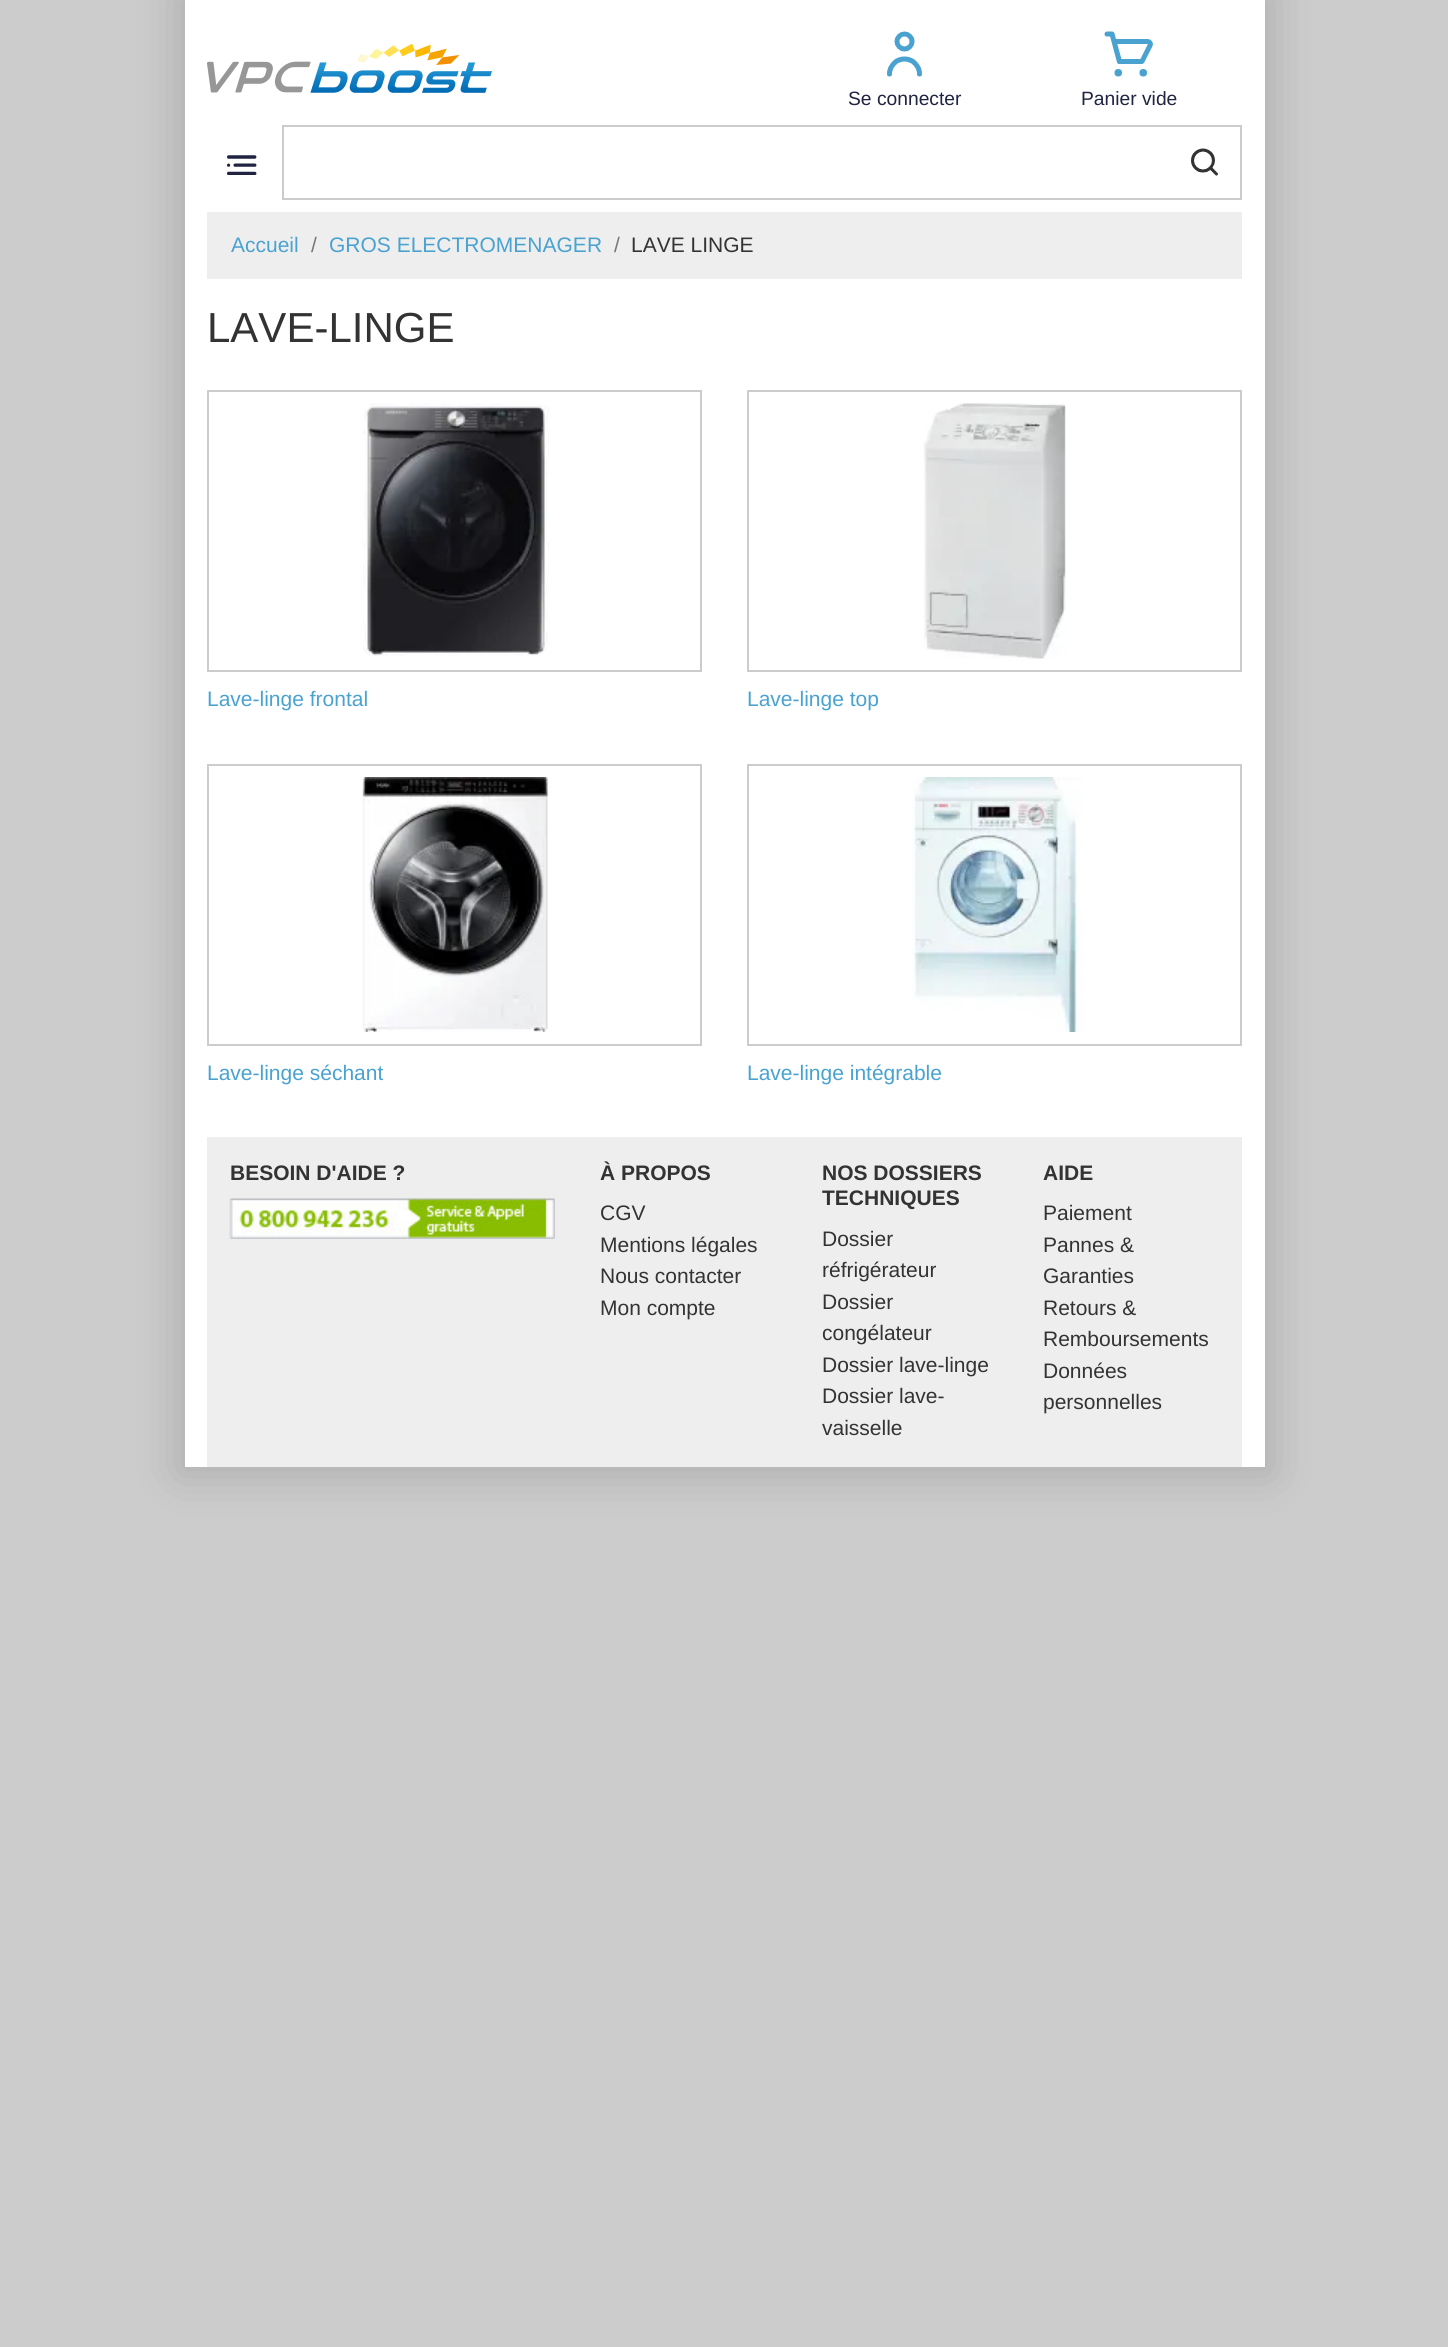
import math
import cairocffi as cairo

surface = cairo.ImageSurface(cairo.FORMAT_RGB24, 1448, 2347)
ctx = cairo.Context(surface)
options = cairo.FontOptions()
options.set_hint_metrics(cairo.HINT_METRICS_OFF)
options.set_hint_style(cairo.HINT_STYLE_NONE)
ctx.set_font_options(options)
ctx.set_miter_limit(4)


def rgb(r, g, b):
    ctx.set_source_rgb(r / 255, g / 255, b / 255)


def face(family, size, italic, bold):
    ctx.select_font_face(family, cairo.FONT_SLANT_ITALIC if italic else cairo.FONT_SLANT_NORMAL, cairo.FONT_WEIGHT_BOLD if bold else cairo.FONT_WEIGHT_NORMAL)
    ctx.set_font_size(size)


def label(x, y, s):
    ctx.move_to(x, y)
    ctx.show_text(s)


def rect(x, y, w, h):
    ctx.rectangle(x, y, w, h)
    ctx.fill()


def rrect(x, y, w, h, r):
    ctx.new_sub_path()
    for i, (u, v) in enumerate([(x + w - r, y + h - r), (x + r, y + h - r), (x + r, y + r), (x + w - r, y + r)]):
        ctx.arc(u, v, r, i * math.pi / 2, (i + 1) * math.pi / 2)
    ctx.close_path()


def soft_shadow(x, y, w, h, r, blur, alpha):
    ctx.push_group_with_content(cairo.CONTENT_ALPHA)
    ctx.set_operator(cairo.OPERATOR_SOURCE)
    for i in range(15, -16, -2):
        e = blur * i / 6
        if min(w, h) + 2 * e > 0:
            ctx.set_source_rgba(0, 0, 0, alpha * math.erfc((i - 1) / 8.5) / 2)
            rrect(x - e, y - e, w + 2 * e, h + 2 * e, max(0, min(r + e + blur * .6, min(w, h) / 2 + e)))
            ctx.fill()
    ctx.mask(ctx.pop_group())


def image(path, x, y, w, h):
    ctx.save()
    ctx.set_source_surface(cairo.ImageSurface.create_from_png(path), x, y)
    ctx.rectangle(x, y, w, h)
    ctx.fill()
    ctx.restore()


rgb(204, 204, 204)
ctx.paint()
rgb(0, 0, 0)
soft_shadow(177, -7, 1095, 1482, 0, 22.5, 0.15)
rgb(255, 255, 255)
rect(185, 0, 1080, 1467)
image('image0.png', 207, 44, 285, 49)
image('image1.png', 887, 31, 35, 46)
face('Liberation Sans', 19.25, 0, 0)
rgb(32, 36, 66)
label(848, 105, 'Se connecter')
image('image2.png', 1104, 31, 49, 46)
label(1081, 105, 'Panier vide')
ctx.rectangle(283, 126, 958, 73)
rgb(204, 204, 204)
ctx.stroke()
image('image3.png', 1191, 148, 27, 28)
image('image4.png', 227, 155, 30, 20)
rgb(238, 238, 238)
rect(207, 212, 1035, 67)
face('Liberation Sans', 21, 0, 0)
rgb(73, 162, 208)
label(231, 252, 'Accueil')
rgb(119, 119, 119)
label(311, 252, '/')
rgb(73, 162, 208)
label(329, 252, 'GROS ELECTROMENAGER')
rgb(119, 119, 119)
label(614, 252, '/')
rgb(51, 51, 51)
label(631, 252, 'LAVE LINGE')
face('Liberation Sans', 42, 0, 0)
label(207, 342, 'LAVE-LINGE')
ctx.rectangle(208, 391, 493, 280)
rgb(204, 204, 204)
ctx.stroke()
image('image5.png', 363, 403, 187, 253)
face('Liberation Sans', 21, 0, 0)
rgb(73, 162, 208)
label(207, 706, 'Lave-linge frontal')
ctx.rectangle(748, 391, 493, 280)
rgb(204, 204, 204)
ctx.stroke()
image('image6.png', 923, 403, 143, 256)
rgb(73, 162, 208)
label(747, 706, 'Lave-linge top')
ctx.rectangle(208, 765, 493, 280)
rgb(204, 204, 204)
ctx.stroke()
image('image7.png', 362, 777, 187, 255)
rgb(73, 162, 208)
label(207, 1080, 'Lave-linge séchant')
ctx.rectangle(748, 765, 493, 280)
rgb(204, 204, 204)
ctx.stroke()
image('image8.png', 911, 777, 173, 255)
rgb(73, 162, 208)
label(747, 1080, 'Lave-linge intégrable')
rgb(238, 238, 238)
rect(207, 1137, 1035, 330)
face('Liberation Sans', 21, 0, 1)
rgb(51, 51, 51)
label(230, 1180, 'BESOIN D\'AIDE ?')
image('image9.png', 229, 1198, 326, 41)
label(600, 1180, 'À PROPOS')
face('Liberation Sans', 21, 0, 0)
label(600, 1220, 'CGV')
label(600, 1252, 'Mentions légales')
label(600, 1283, 'Nous contacter')
label(600, 1315, 'Mon compte')
face('Liberation Sans', 21, 0, 1)
label(822, 1180, 'NOS DOSSIERS')
label(822, 1205, 'TECHNIQUES')
face('Liberation Sans', 21, 0, 0)
label(822, 1246, 'Dossier')
label(822, 1277, 'réfrigérateur')
label(822, 1309, 'Dossier')
label(822, 1340, 'congélateur')
label(822, 1372, 'Dossier lave-linge')
label(822, 1403, 'Dossier lave-')
label(822, 1435, 'vaisselle')
face('Liberation Sans', 21, 0, 1)
label(1043, 1180, 'AIDE')
face('Liberation Sans', 21, 0, 0)
label(1043, 1220, 'Paiement')
label(1043, 1252, 'Pannes &')
label(1043, 1283, 'Garanties')
label(1043, 1315, 'Retours &')
label(1043, 1346, 'Remboursements')
label(1043, 1378, 'Données')
label(1043, 1409, 'personnelles')
surface.write_to_png('render.png')
